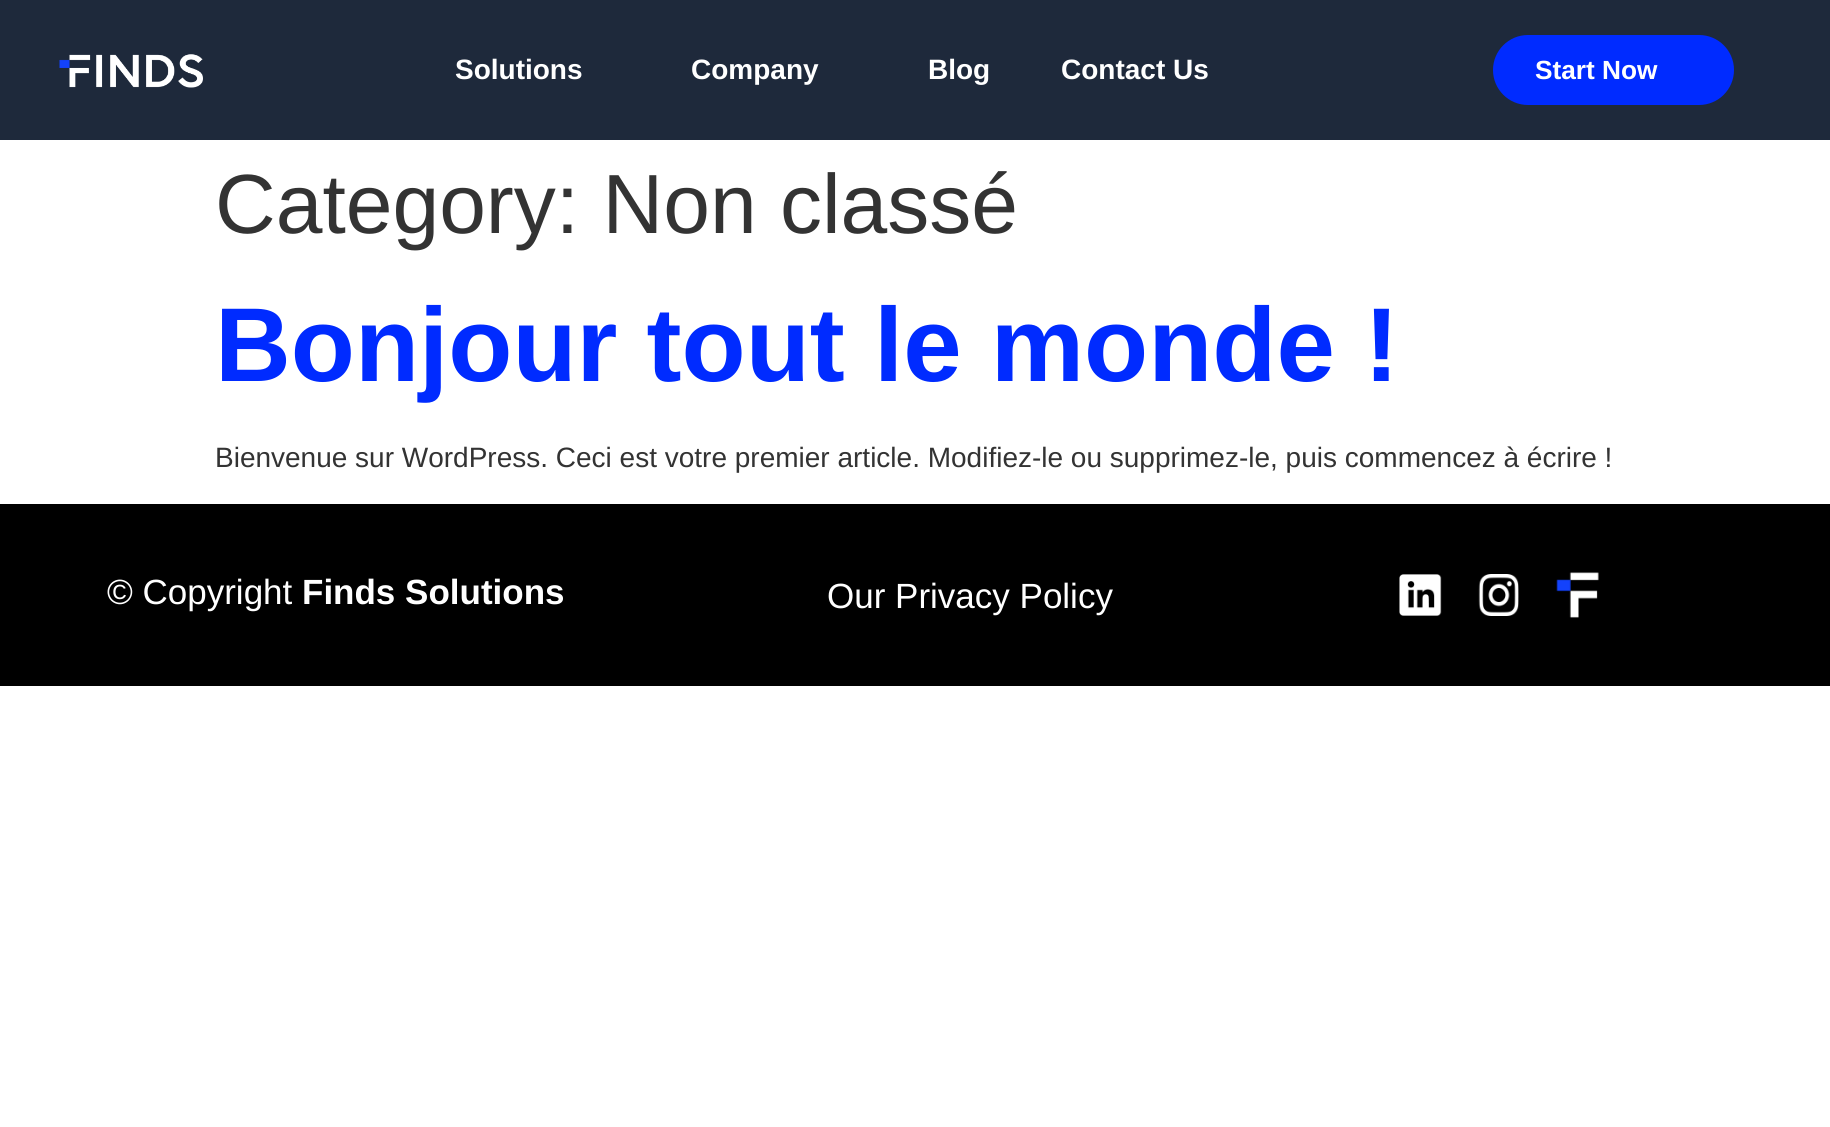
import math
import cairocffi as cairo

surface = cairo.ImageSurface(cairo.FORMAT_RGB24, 1830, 1127)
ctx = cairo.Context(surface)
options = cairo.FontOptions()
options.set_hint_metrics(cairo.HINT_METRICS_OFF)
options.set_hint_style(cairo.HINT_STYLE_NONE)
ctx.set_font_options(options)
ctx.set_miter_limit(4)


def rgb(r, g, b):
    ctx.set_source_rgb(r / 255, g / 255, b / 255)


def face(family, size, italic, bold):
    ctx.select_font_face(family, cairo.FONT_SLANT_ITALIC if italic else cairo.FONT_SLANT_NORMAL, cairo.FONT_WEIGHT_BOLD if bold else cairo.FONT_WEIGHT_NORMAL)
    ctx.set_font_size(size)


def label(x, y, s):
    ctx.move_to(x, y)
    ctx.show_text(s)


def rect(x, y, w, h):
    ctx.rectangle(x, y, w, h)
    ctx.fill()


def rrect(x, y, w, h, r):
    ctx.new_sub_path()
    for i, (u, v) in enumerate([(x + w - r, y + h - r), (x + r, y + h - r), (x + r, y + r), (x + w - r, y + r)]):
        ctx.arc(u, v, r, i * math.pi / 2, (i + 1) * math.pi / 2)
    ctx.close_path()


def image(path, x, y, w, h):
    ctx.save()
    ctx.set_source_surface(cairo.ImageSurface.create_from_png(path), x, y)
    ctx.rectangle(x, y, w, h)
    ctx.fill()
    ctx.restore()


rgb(255, 255, 255)
ctx.paint()
rgb(30, 41, 59)
rect(0, 0, 1830, 140)
image('image0.png', 59, 54, 144, 34)
face('Liberation Sans', 28, 0, 1)
rgb(255, 255, 255)
label(455, 79, 'Solutions')
label(691, 79, 'Company')
label(928, 79, 'Blog')
label(1061, 79, 'Contact Us')
rgb(0, 43, 255)
rrect(1493, 35, 241, 70, 35)
ctx.fill()
face('Liberation Sans', 26.25, 0, 1)
rgb(255, 255, 255)
label(1535, 79, 'Start Now')
face('Liberation Sans', 84, 0, 0)
rgb(51, 51, 51)
label(215, 233, 'Category: Non classé')
face('Liberation Sans', 105, 0, 1)
rgb(0, 43, 255)
label(215, 381, 'Bonjour tout le monde !')
face('Liberation Sans', 28, 0, 0)
rgb(51, 51, 51)
label(215, 467, 'Bienvenue sur WordPress. Ceci est votre premier article. Modifiez-le ou supprimez-le, puis commencez à écrire !')
rgb(0, 0, 0)
rect(0, 504, 1830, 182)
face('Liberation Sans', 35, 0, 0)
rgb(255, 255, 255)
label(107, 604, '© Copyright')
face('Liberation Sans', 35, 0, 1)
label(302, 604, 'Finds Solutions')
face('Liberation Sans', 35, 0, 0)
label(827, 608, 'Our Privacy Policy')
image('image1.png', 1399, 574, 43, 42)
image('image2.png', 1478, 574, 41, 42)
image('image3.png', 1556, 572, 43, 46)
surface.write_to_png('render.png')
